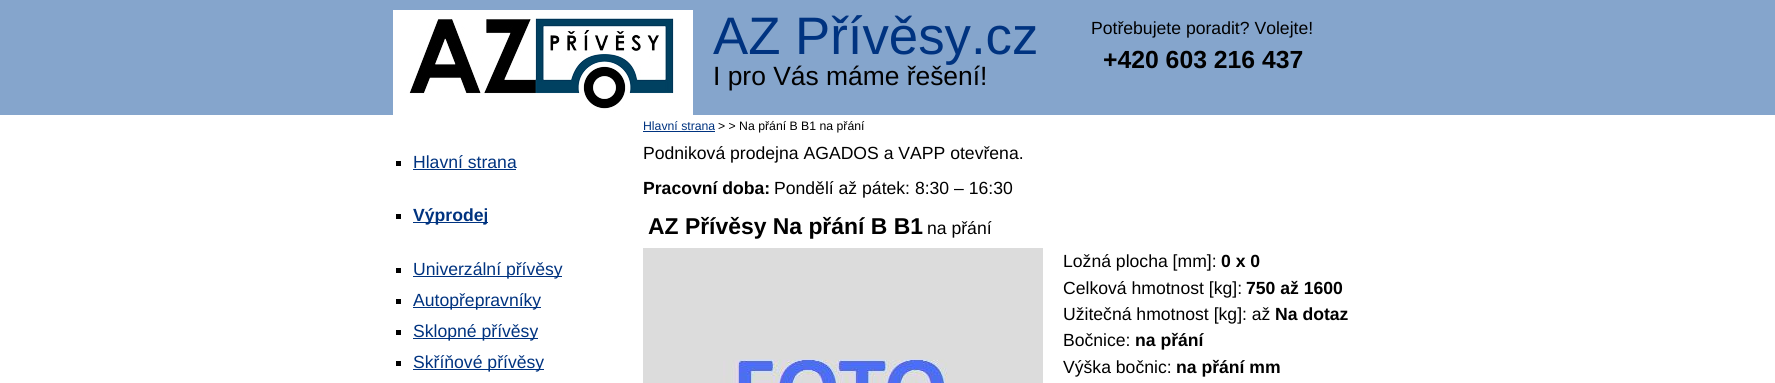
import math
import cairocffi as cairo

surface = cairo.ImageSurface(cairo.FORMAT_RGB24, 1775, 383)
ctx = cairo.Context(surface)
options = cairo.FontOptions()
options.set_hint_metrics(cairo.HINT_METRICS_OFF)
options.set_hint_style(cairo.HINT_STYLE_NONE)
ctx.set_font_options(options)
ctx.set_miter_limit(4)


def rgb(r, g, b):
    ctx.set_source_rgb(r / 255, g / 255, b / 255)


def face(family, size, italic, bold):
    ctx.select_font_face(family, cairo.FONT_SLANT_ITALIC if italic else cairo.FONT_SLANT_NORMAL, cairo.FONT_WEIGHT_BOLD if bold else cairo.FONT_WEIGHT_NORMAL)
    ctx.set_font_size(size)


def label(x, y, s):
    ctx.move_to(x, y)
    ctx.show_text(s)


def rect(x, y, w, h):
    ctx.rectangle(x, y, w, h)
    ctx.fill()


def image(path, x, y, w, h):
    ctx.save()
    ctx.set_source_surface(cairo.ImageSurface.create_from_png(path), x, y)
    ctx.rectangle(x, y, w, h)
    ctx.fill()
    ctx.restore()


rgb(255, 255, 255)
ctx.paint()
rgb(133, 165, 204)
rect(0, 0, 1775, 115)
image('image0.png', 393, 10, 300, 105)
face('Liberation Sans', 52.75, 0, 0)
rgb(0, 51, 128)
label(713, 54, 'AZ Přívěsy.cz')
face('Liberation Sans', 17.6, 0, 0)
rgb(0, 0, 0)
label(1091, 34, 'Potřebujete poradit? Volejte!')
face('Liberation Sans', 24.75, 0, 1)
label(1103, 68, '+420 603 216 437')
face('Liberation Sans', 26.4, 0, 0)
label(713, 85, 'I pro Vás máme řešení!')
face('Liberation Sans', 12.25, 0, 0)
rgb(0, 51, 128)
label(643, 130, 'Hlavní strana')
rect(643, 131, 72, 1)
rgb(0, 0, 0)
label(718, 130, '> > Na přání B B1 na přání')
rect(396, 161, 5, 5)
face('Liberation Sans', 17.6, 0, 0)
rgb(0, 51, 128)
label(413, 168, 'Hlavní strana')
rect(413, 169, 103, 1)
rgb(0, 0, 0)
rect(396, 214, 5, 5)
rgb(0, 51, 128)
rect(413, 222, 75, 1)
face('Liberation Sans', 17.6, 0, 1)
label(413, 221, 'Výprodej')
rgb(0, 0, 0)
rect(396, 268, 5, 5)
rgb(0, 51, 128)
rect(413, 276, 149, 1)
face('Liberation Sans', 17.6, 0, 0)
label(413, 275, 'Univerzální přívěsy')
rgb(0, 0, 0)
rect(396, 299, 5, 5)
rgb(0, 51, 128)
rect(413, 307, 128, 1)
label(413, 306, 'Autopřepravníky')
rgb(0, 0, 0)
rect(396, 330, 5, 5)
rgb(0, 51, 128)
rect(413, 338, 125, 1)
label(413, 337, 'Sklopné přívěsy')
rgb(0, 0, 0)
rect(396, 361, 5, 5)
rgb(0, 51, 128)
rect(413, 369, 131, 1)
label(413, 368, 'Skříňové přívěsy')
rgb(0, 0, 0)
label(643, 159, 'Podniková prodejna AGADOS a VAPP otevřena.')
face('Liberation Sans', 17.6, 0, 1)
label(643, 194, 'Pracovní doba:')
face('Liberation Sans', 17.6, 0, 0)
label(774, 194, 'Pondělí až pátek: 8:30 – 16:30')
face('Liberation Sans', 22.9, 0, 1)
label(648, 234, 'AZ Přívěsy Na přání B B1')
face('Liberation Sans', 17.6, 0, 0)
label(927, 234, 'na přání')
image('image1.png', 643, 248, 400, 135)
label(1063, 267, 'Ložná plocha [mm]:')
face('Liberation Sans', 17.6, 0, 1)
label(1221, 267, '0 x 0')
face('Liberation Sans', 17.6, 0, 0)
label(1063, 294, 'Celková hmotnost [kg]:')
face('Liberation Sans', 17.6, 0, 1)
label(1246, 294, '750 až 1600')
face('Liberation Sans', 17.6, 0, 0)
label(1063, 320, 'Užitečná hmotnost [kg]: až')
face('Liberation Sans', 17.6, 0, 1)
label(1275, 320, 'Na dotaz')
face('Liberation Sans', 17.6, 0, 0)
label(1063, 346, 'Bočnice:')
face('Liberation Sans', 17.6, 0, 1)
label(1135, 346, 'na přání')
face('Liberation Sans', 17.6, 0, 0)
label(1063, 373, 'Výška bočnic:')
face('Liberation Sans', 17.6, 0, 1)
label(1176, 373, 'na přání mm')
surface.write_to_png('render.png')
